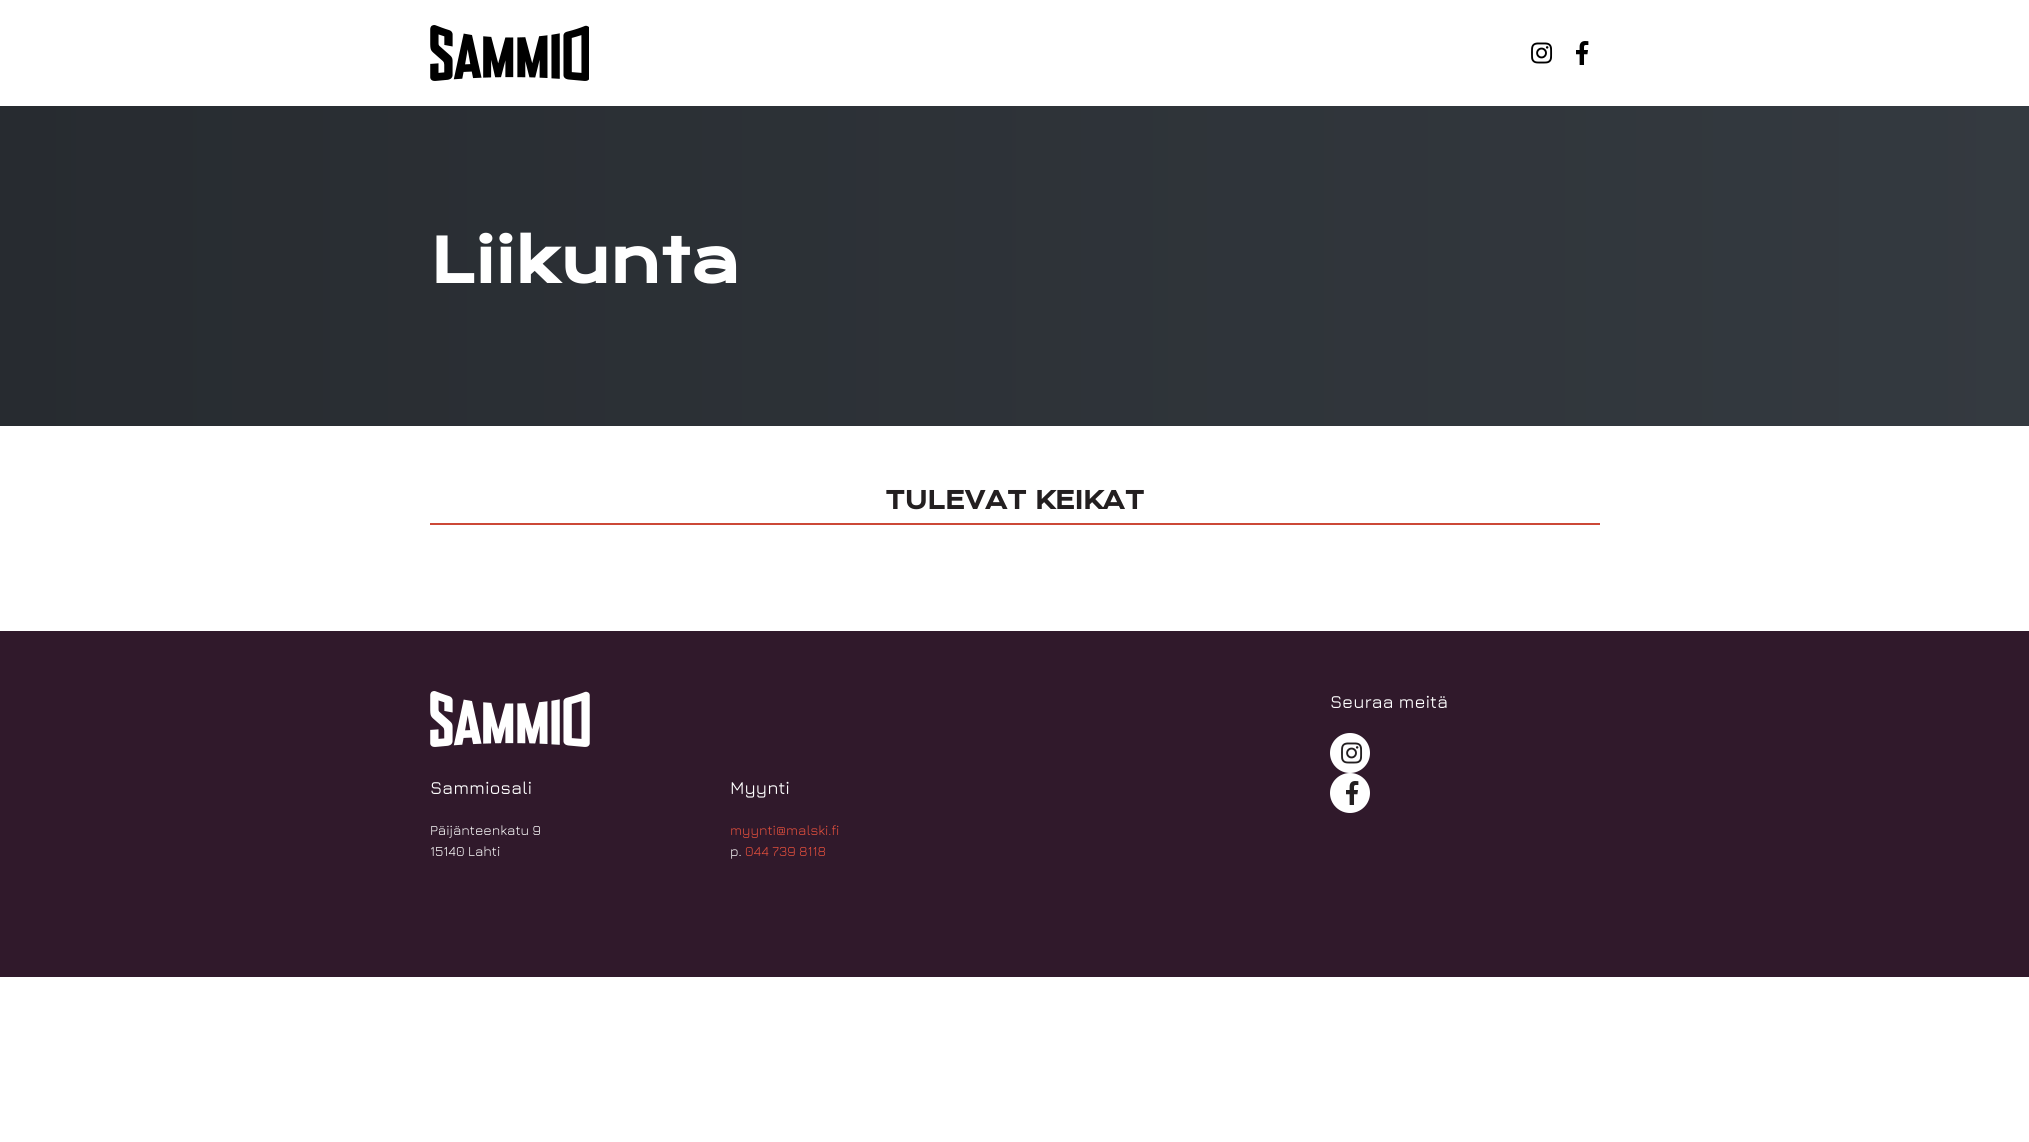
import math
import cairocffi as cairo

surface = cairo.ImageSurface(cairo.FORMAT_RGB24, 2029, 1142)
ctx = cairo.Context(surface)
options = cairo.FontOptions()
options.set_hint_metrics(cairo.HINT_METRICS_OFF)
options.set_hint_style(cairo.HINT_STYLE_NONE)
ctx.set_font_options(options)
ctx.set_miter_limit(4)


def rgb(r, g, b):
    ctx.set_source_rgb(r / 255, g / 255, b / 255)


def face(family, size, italic, bold):
    ctx.select_font_face(family, cairo.FONT_SLANT_ITALIC if italic else cairo.FONT_SLANT_NORMAL, cairo.FONT_WEIGHT_BOLD if bold else cairo.FONT_WEIGHT_NORMAL)
    ctx.set_font_size(size)


def label(x, y, s):
    ctx.move_to(x, y)
    ctx.show_text(s)


def rect(x, y, w, h):
    ctx.rectangle(x, y, w, h)
    ctx.fill()


def image(path, x, y, w, h):
    ctx.save()
    ctx.set_source_surface(cairo.ImageSurface.create_from_png(path), x, y)
    ctx.rectangle(x, y, w, h)
    ctx.fill()
    ctx.restore()


rgb(255, 255, 255)
ctx.paint()
image('image0.png', 430, 25, 159, 56)
image('image1.png', 1531, 42, 22, 22)
image('image2.png', 1576, 41, 13, 24)
gradient = cairo.LinearGradient(2029, 266, 0, 266)
gradient.add_color_stop_rgba(0, 0.204, 0.227, 0.251, 1)
gradient.add_color_stop_rgba(1, 0.153, 0.169, 0.188, 1)
ctx.set_source(gradient)
rect(0, 106, 2029, 320)
face('Krona One', 60, 0, 1)
rgb(255, 255, 255)
label(430, 283, 'Liikunta')
rgb(204, 72, 55)
rect(430, 523, 1170, 2)
face('Krona One', 24, 0, 1)
rgb(35, 31, 32)
label(885, 509, 'TULEVAT KEIKAT')
rgb(48, 25, 43)
rect(0, 631, 2029, 346)
face('Jura Medium', 18, 0, 0)
rgb(255, 255, 255)
label(1330, 708, 'Seuraa meitä')
ctx.new_path()
ctx.arc(1350, 753, 20, 0, 2 * math.pi)
ctx.fill()
image('image3.png', 1341, 742, 22, 22)
ctx.arc(1350, 793, 20, 0, 2 * math.pi)
ctx.fill()
image('image4.png', 1346, 781, 13, 24)
image('image5.png', 430, 691, 160, 56)
label(430, 794, 'Sammiosali')
face('Jura', 14, 0, 0)
label(430, 835, 'Päijänteenkatu 9')
label(430, 856, '15140 Lahti')
face('Jura Medium', 18, 0, 0)
label(730, 794, 'Myynti')
face('Jura', 14, 0, 0)
rgb(230, 80, 61)
label(730, 835, 'myynti@malski.fi')
rgb(255, 255, 255)
label(730, 856, 'p.')
rgb(230, 80, 61)
label(745, 856, '044 739 8118')
surface.write_to_png('render.png')
